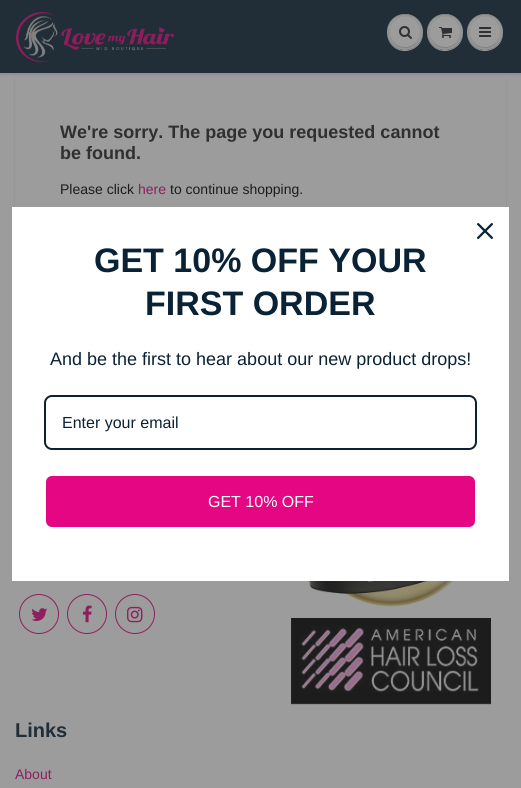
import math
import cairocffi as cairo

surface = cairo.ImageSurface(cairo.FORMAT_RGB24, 521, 788)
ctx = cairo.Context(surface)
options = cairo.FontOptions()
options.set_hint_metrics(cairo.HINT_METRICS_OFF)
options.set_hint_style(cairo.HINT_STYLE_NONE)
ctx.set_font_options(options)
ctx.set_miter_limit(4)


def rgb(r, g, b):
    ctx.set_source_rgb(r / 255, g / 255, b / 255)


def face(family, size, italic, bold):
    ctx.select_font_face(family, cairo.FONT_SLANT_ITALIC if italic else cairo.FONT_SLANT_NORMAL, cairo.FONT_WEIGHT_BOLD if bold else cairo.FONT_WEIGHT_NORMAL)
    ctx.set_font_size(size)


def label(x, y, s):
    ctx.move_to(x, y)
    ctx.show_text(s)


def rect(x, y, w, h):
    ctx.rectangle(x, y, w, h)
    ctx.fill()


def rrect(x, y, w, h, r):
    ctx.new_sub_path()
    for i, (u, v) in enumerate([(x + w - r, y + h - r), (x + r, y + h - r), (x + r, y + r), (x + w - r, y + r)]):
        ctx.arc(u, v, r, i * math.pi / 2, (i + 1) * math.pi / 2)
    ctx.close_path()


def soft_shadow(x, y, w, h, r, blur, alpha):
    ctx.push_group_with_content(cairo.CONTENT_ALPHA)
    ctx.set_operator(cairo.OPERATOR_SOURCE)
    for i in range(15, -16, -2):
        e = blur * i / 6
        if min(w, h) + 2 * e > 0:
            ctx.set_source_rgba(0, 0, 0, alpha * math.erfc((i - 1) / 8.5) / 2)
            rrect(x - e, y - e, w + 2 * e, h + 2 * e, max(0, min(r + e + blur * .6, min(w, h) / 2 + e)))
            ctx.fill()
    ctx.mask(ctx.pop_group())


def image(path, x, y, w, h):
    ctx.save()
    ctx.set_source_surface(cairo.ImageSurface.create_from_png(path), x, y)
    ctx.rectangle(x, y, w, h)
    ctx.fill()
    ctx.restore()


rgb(156, 156, 156)
ctx.paint()
rgb(34, 41, 42)
soft_shadow(15, 74, 491, 183, 5, 1, 0.1)
rgb(156, 156, 156)
rrect(15, 72, 491, 183, 5)
ctx.fill()
rgb(34, 41, 42)
soft_shadow(0, 2, 521, 73, 0, 1, 0.12)
rgb(33, 45, 55)
rect(0, 0, 521, 73)
image('image0.png', 16, 12, 158, 51)
rgb(156, 156, 156)
ctx.new_path()
ctx.move_to(423, 32.5)
ctx.curve_to(422.5, 42, 415, 50, 405, 50)
ctx.curve_to(395, 50, 387.5, 42, 387, 32.5)
ctx.curve_to(387, 36, 388, 40, 390, 43)
ctx.curve_to(400, 58, 423.5, 50.5, 423, 32.5)
ctx.close_path()
ctx.fill()
rgb(147, 148, 148)
ctx.arc(405, 32, 18, 0, 2 * math.pi)
ctx.fill()
rgb(129, 130, 130)
ctx.new_path()
ctx.move_to(405, 15)
ctx.curve_to(417, 15, 423, 23.5, 423, 32.5)
ctx.curve_to(423, 29, 422, 25, 420, 22)
ctx.curve_to(410, 7, 386.5, 14.5, 387, 32.5)
ctx.curve_to(387, 23.5, 393, 15, 405, 15)
ctx.close_path()
ctx.fill()
ctx.new_path()
ctx.move_to(390, 32.5)
ctx.curve_to(389.5, 47.5, 409, 54, 417.5, 41.5)
ctx.curve_to(419, 39, 420, 35.5, 420, 32.5)
ctx.curve_to(419.5, 51.5, 390.5, 51.5, 390, 32.5)
ctx.close_path()
ctx.fill()
rgb(156, 156, 156)
ctx.arc(405, 32, 15, 0, 2 * math.pi)
ctx.fill()
ctx.new_path()
ctx.move_to(405, 18)
ctx.curve_to(415, 18, 420, 25, 420, 32.5)
ctx.curve_to(420, 29.5, 419, 26, 417.5, 23.5)
ctx.curve_to(409, 11, 389.5, 17.5, 390, 32.5)
ctx.curve_to(390, 25, 395, 18, 405, 18)
ctx.close_path()
ctx.fill()
image('image1.png', 399, 26, 13, 13)
ctx.new_path()
ctx.move_to(463, 32.5)
ctx.curve_to(462.5, 42, 455, 50, 445, 50)
ctx.curve_to(435, 50, 427.5, 42, 427, 32.5)
ctx.curve_to(427, 36, 428, 40, 430, 43)
ctx.curve_to(440, 58, 463.5, 50.5, 463, 32.5)
ctx.close_path()
ctx.fill()
rgb(147, 148, 148)
ctx.arc(445, 32, 18, 0, 2 * math.pi)
ctx.fill()
rgb(129, 130, 130)
ctx.new_path()
ctx.move_to(445, 15)
ctx.curve_to(457, 15, 463, 23.5, 463, 32.5)
ctx.curve_to(463, 29, 462, 25, 460, 22)
ctx.curve_to(450, 7, 426.5, 14.5, 427, 32.5)
ctx.curve_to(427, 23.5, 433, 15, 445, 15)
ctx.close_path()
ctx.fill()
ctx.new_path()
ctx.move_to(430, 32.5)
ctx.curve_to(430, 35.5, 431, 39, 432.5, 41.5)
ctx.curve_to(441, 54, 460.5, 47.5, 460, 32.5)
ctx.curve_to(459.5, 51.5, 430.5, 51.5, 430, 32.5)
ctx.close_path()
ctx.fill()
rgb(156, 156, 156)
ctx.arc(445, 32, 15, 0, 2 * math.pi)
ctx.fill()
ctx.new_path()
ctx.move_to(445, 18)
ctx.curve_to(455, 18, 460, 25, 460, 32.5)
ctx.curve_to(460, 29.5, 459, 26, 457.5, 23.5)
ctx.curve_to(449, 11, 429.5, 17.5, 430, 32.5)
ctx.curve_to(430, 25, 435, 18, 445, 18)
ctx.close_path()
ctx.fill()
image('image2.png', 439, 27, 13, 11)
ctx.new_path()
ctx.move_to(503, 32.5)
ctx.curve_to(502.5, 42, 495, 50, 485, 50)
ctx.curve_to(475, 50, 467.5, 42, 467, 32.5)
ctx.curve_to(467, 36, 468, 40, 470, 43)
ctx.curve_to(480, 58, 503.5, 50.5, 503, 32.5)
ctx.close_path()
ctx.fill()
rgb(147, 148, 148)
ctx.arc(485, 32, 18, 0, 2 * math.pi)
ctx.fill()
rgb(129, 130, 130)
ctx.new_path()
ctx.move_to(485, 15)
ctx.curve_to(497, 15, 503, 23.5, 503, 32.5)
ctx.curve_to(503, 29, 502, 25, 500, 22)
ctx.curve_to(490, 7, 466.5, 14.5, 467, 32.5)
ctx.curve_to(467, 23.5, 473, 15, 485, 15)
ctx.close_path()
ctx.fill()
ctx.new_path()
ctx.move_to(470, 32.5)
ctx.curve_to(469.5, 47.5, 489, 54, 497.5, 41.5)
ctx.curve_to(499, 39, 500, 35.5, 500, 32.5)
ctx.curve_to(499.5, 51.5, 470.5, 51.5, 470, 32.5)
ctx.close_path()
ctx.fill()
rgb(156, 156, 156)
ctx.arc(485, 32, 15, 0, 2 * math.pi)
ctx.fill()
ctx.new_path()
ctx.move_to(485, 18)
ctx.curve_to(495, 18, 500, 25, 500, 32.5)
ctx.curve_to(500, 29.5, 499, 26, 497.5, 23.5)
ctx.curve_to(489, 11, 469.5, 17.5, 470, 32.5)
ctx.curve_to(470, 25, 475, 18, 485, 18)
ctx.close_path()
ctx.fill()
image('image3.png', 479, 27, 12, 10)
face('Liberation Sans', 18, 0, 1)
rgb(48, 48, 48)
label(60, 138, 'We\'re sorry. The page you requested cannot')
label(60, 159, 'be found.')
face('Liberation Sans', 14, 0, 0)
rgb(28, 28, 28)
label(60, 194, 'Please click')
rgb(142, 31, 94)
label(138, 194, 'here')
rgb(28, 28, 28)
label(170, 194, 'to continue shopping.')
ctx.new_path()
ctx.arc(39, 614, 19.5, 0, 2 * math.pi)
rgb(142, 31, 94)
ctx.set_line_width(1)
ctx.stroke()
image('image4.png', 31, 608, 17, 13)
ctx.arc(87, 614, 19.5, 0, 2 * math.pi)
ctx.stroke()
image('image5.png', 82, 605, 10, 18)
ctx.arc(135, 614, 19.5, 0, 2 * math.pi)
ctx.stroke()
image('image6.png', 127, 606, 16, 17)
image('image7.png', 309, 581, 145, 26)
image('image8.png', 291, 618, 200, 87)
face('Liberation Sans', 20, 0, 1)
rgb(33, 45, 55)
label(15, 737, 'Links')
face('Liberation Sans', 14, 0, 0)
rgb(142, 31, 94)
label(15, 779, 'About')
rgb(255, 255, 255)
rect(12, 207, 497, 374)
image('image9.png', 477, 223, 16, 16)
face('Liberation Sans', 34, 0, 1)
rgb(9, 34, 54)
label(94, 272, 'GET 10% OFF YOUR')
label(145, 315, 'FIRST ORDER')
face('Liberation Sans', 18, 0, 0)
label(50, 365, 'And be the first to hear about our new product drops!')
rrect(45, 396, 431, 53, 7)
ctx.set_line_width(2)
ctx.stroke()
face('Liberation Sans', 16, 0, 0)
label(62, 428, 'Enter your email')
rgb(228, 6, 131)
rrect(45, 475, 431, 53, 7)
ctx.fill_preserve()
rgb(255, 255, 255)
ctx.stroke()
label(208, 507, 'GET 10% OFF')
surface.write_to_png('render.png')
